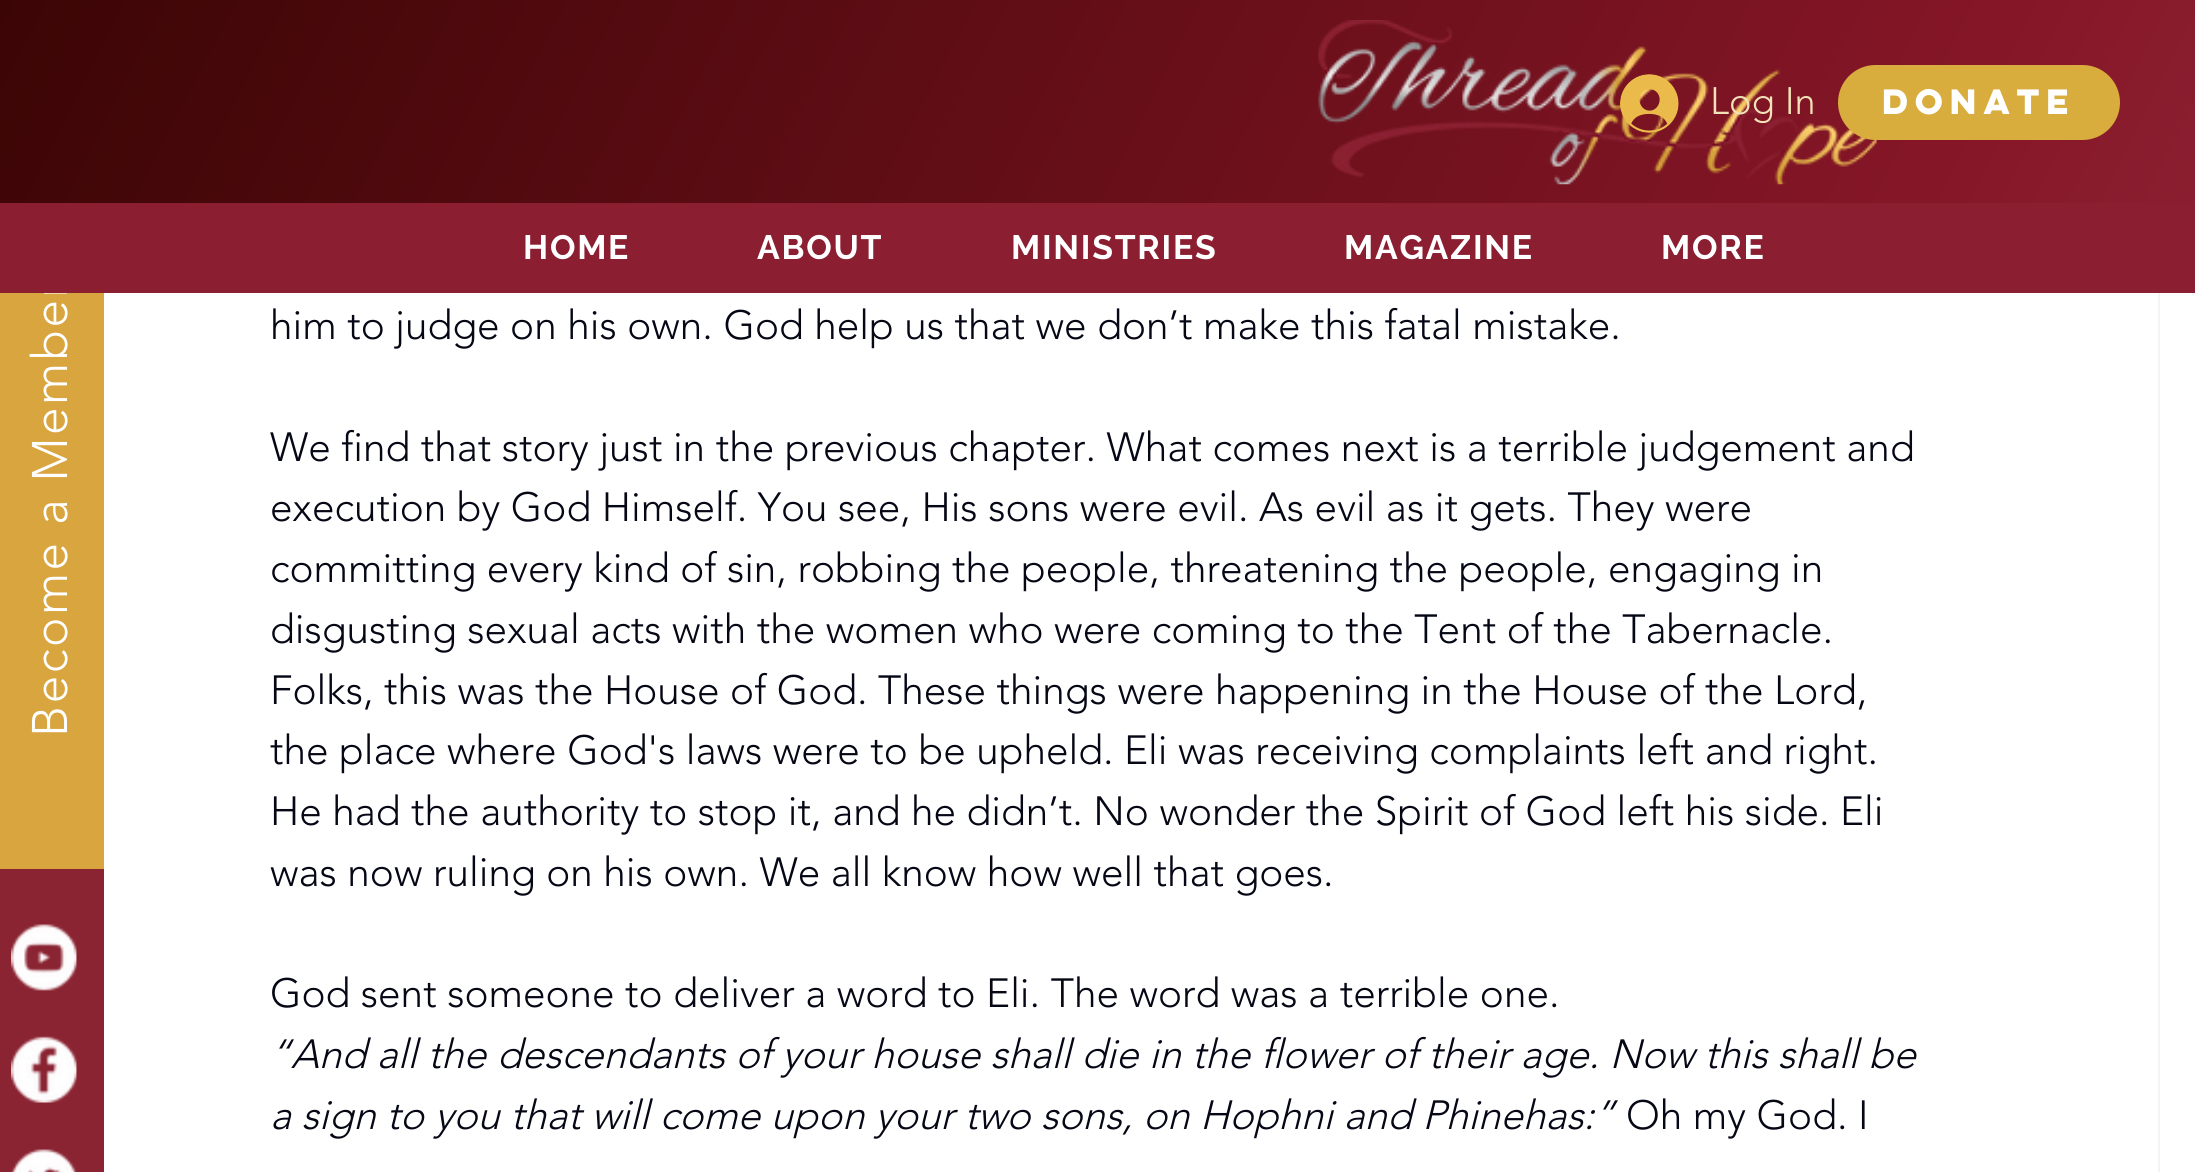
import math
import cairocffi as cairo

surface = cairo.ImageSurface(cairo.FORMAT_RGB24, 2195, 1172)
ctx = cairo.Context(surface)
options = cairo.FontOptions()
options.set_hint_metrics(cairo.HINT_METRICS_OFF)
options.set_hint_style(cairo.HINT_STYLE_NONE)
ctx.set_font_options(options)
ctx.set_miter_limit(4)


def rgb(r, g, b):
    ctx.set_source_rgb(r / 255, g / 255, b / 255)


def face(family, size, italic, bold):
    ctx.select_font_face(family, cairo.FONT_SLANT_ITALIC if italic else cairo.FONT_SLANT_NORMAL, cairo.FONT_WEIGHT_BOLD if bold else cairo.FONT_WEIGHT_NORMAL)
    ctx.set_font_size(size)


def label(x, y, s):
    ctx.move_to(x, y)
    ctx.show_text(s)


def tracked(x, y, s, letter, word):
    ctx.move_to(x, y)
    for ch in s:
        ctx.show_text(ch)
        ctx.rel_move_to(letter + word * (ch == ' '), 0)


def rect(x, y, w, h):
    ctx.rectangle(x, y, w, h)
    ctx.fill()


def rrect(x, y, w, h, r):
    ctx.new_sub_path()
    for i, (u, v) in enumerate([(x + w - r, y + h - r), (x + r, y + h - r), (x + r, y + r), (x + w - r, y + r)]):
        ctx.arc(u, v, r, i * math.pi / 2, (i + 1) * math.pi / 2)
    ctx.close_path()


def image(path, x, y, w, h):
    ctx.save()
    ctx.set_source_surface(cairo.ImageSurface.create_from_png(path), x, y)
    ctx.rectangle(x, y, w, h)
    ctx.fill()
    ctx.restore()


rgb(255, 255, 255)
ctx.paint()
ctx.rectangle(46, -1, 2113, 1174)
rgb(245, 244, 245)
ctx.stroke()
gradient = cairo.LinearGradient(181, -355, 2024, 584)
gradient.add_color_stop_rgba(0, 0.235, 0.02, 0.02, 1)
gradient.add_color_stop_rgba(0.87, 0.522, 0.086, 0.153, 1)
gradient.add_color_stop_rgba(1, 0.545, 0.122, 0.192, 1)
ctx.set_source(gradient)
rect(0, 0, 2195, 203)
image('image0.png', 1318, 20, 559, 165)
image('image1.png', 1620, 74, 59, 59)
face('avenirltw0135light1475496 Light', 38, 0, 0)
rgb(242, 226, 184)
label(1710, 114, 'Log In')
rgb(216, 173, 61)
rrect(1838, 65, 282, 75, 37.5)
ctx.fill()
face('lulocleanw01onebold', 31.5, 0, 1)
rgb(255, 255, 255)
label(1882, 114, 'Donate')
rgb(216, 165, 63)
rect(0, 293, 104, 576)
face('avenirltw0135light1475496 Light', 49.5, 0, 0)
rgb(255, 255, 255)
ctx.save()
ctx.translate(67, 737)
ctx.rotate(-90 * math.pi / 180)
tracked(0, 0, 'Become a Member', 2.5, 0)
ctx.restore()
rgb(139, 31, 49)
rect(0, 203, 2195, 90)
face('Raleway', 33.75, 0, 1)
rgb(255, 255, 255)
tracked(523, 259, 'HOME', 1.75, 0)
tracked(757, 259, 'ABOUT', 1.75, 0)
tracked(1011, 259, 'MINISTRIES', 1.75, 0)
tracked(1344, 259, 'MAGAZINE', 1.75, 0)
tracked(1661, 259, 'MORE', 1.75, 0)
rgb(138, 36, 50)
rect(0, 869, 104, 303)
image('image2.png', 11, 924, 66, 67)
image('image3.png', 11, 1036, 66, 67)
image('image4.png', 11, 1149, 66, 23)
face('avenirltw0135light1475496 Light', 40.5, 0, 0)
rgb(5, 7, 21)
label(270, 339, 'him to judge on his own. God help us that we don’t make this fatal mistake.')
label(270, 461, 'We find that story just in the previous chapter. What comes next is a terrible judgement and')
label(270, 521, 'execution by God Himself. You see, His sons were evil. As evil as it gets. They were')
label(270, 582, 'committing every kind of sin, robbing the people, threatening the people, engaging in')
label(270, 643, 'disgusting sexual acts with the women who were coming to the Tent of the Tabernacle.')
label(270, 704, 'Folks, this was the House of God. These things were happening in the House of the Lord,')
label(270, 764, 'the place where God\'s laws were to be upheld. Eli was receiving complaints left and right.')
label(270, 825, 'He had the authority to stop it, and he didn’t. No wonder the Spirit of God left his side. Eli')
label(270, 886, 'was now ruling on his own. We all know how well that goes.')
label(270, 1007, 'God sent someone to deliver a word to Eli. The word was a terrible one.')
face('avenirltw0135light1475496 Light', 40.5, 1, 0)
label(270, 1068, '“And all the descendants of your house shall die in the flower of their age. Now this shall be')
label(270, 1129, 'a sign to you that will come upon your two sons, on Hophni and Phinehas:”')
face('avenirltw0135light1475496 Light', 40.5, 0, 0)
label(1626, 1129, 'Oh my God. I')
surface.write_to_png('render.png')
